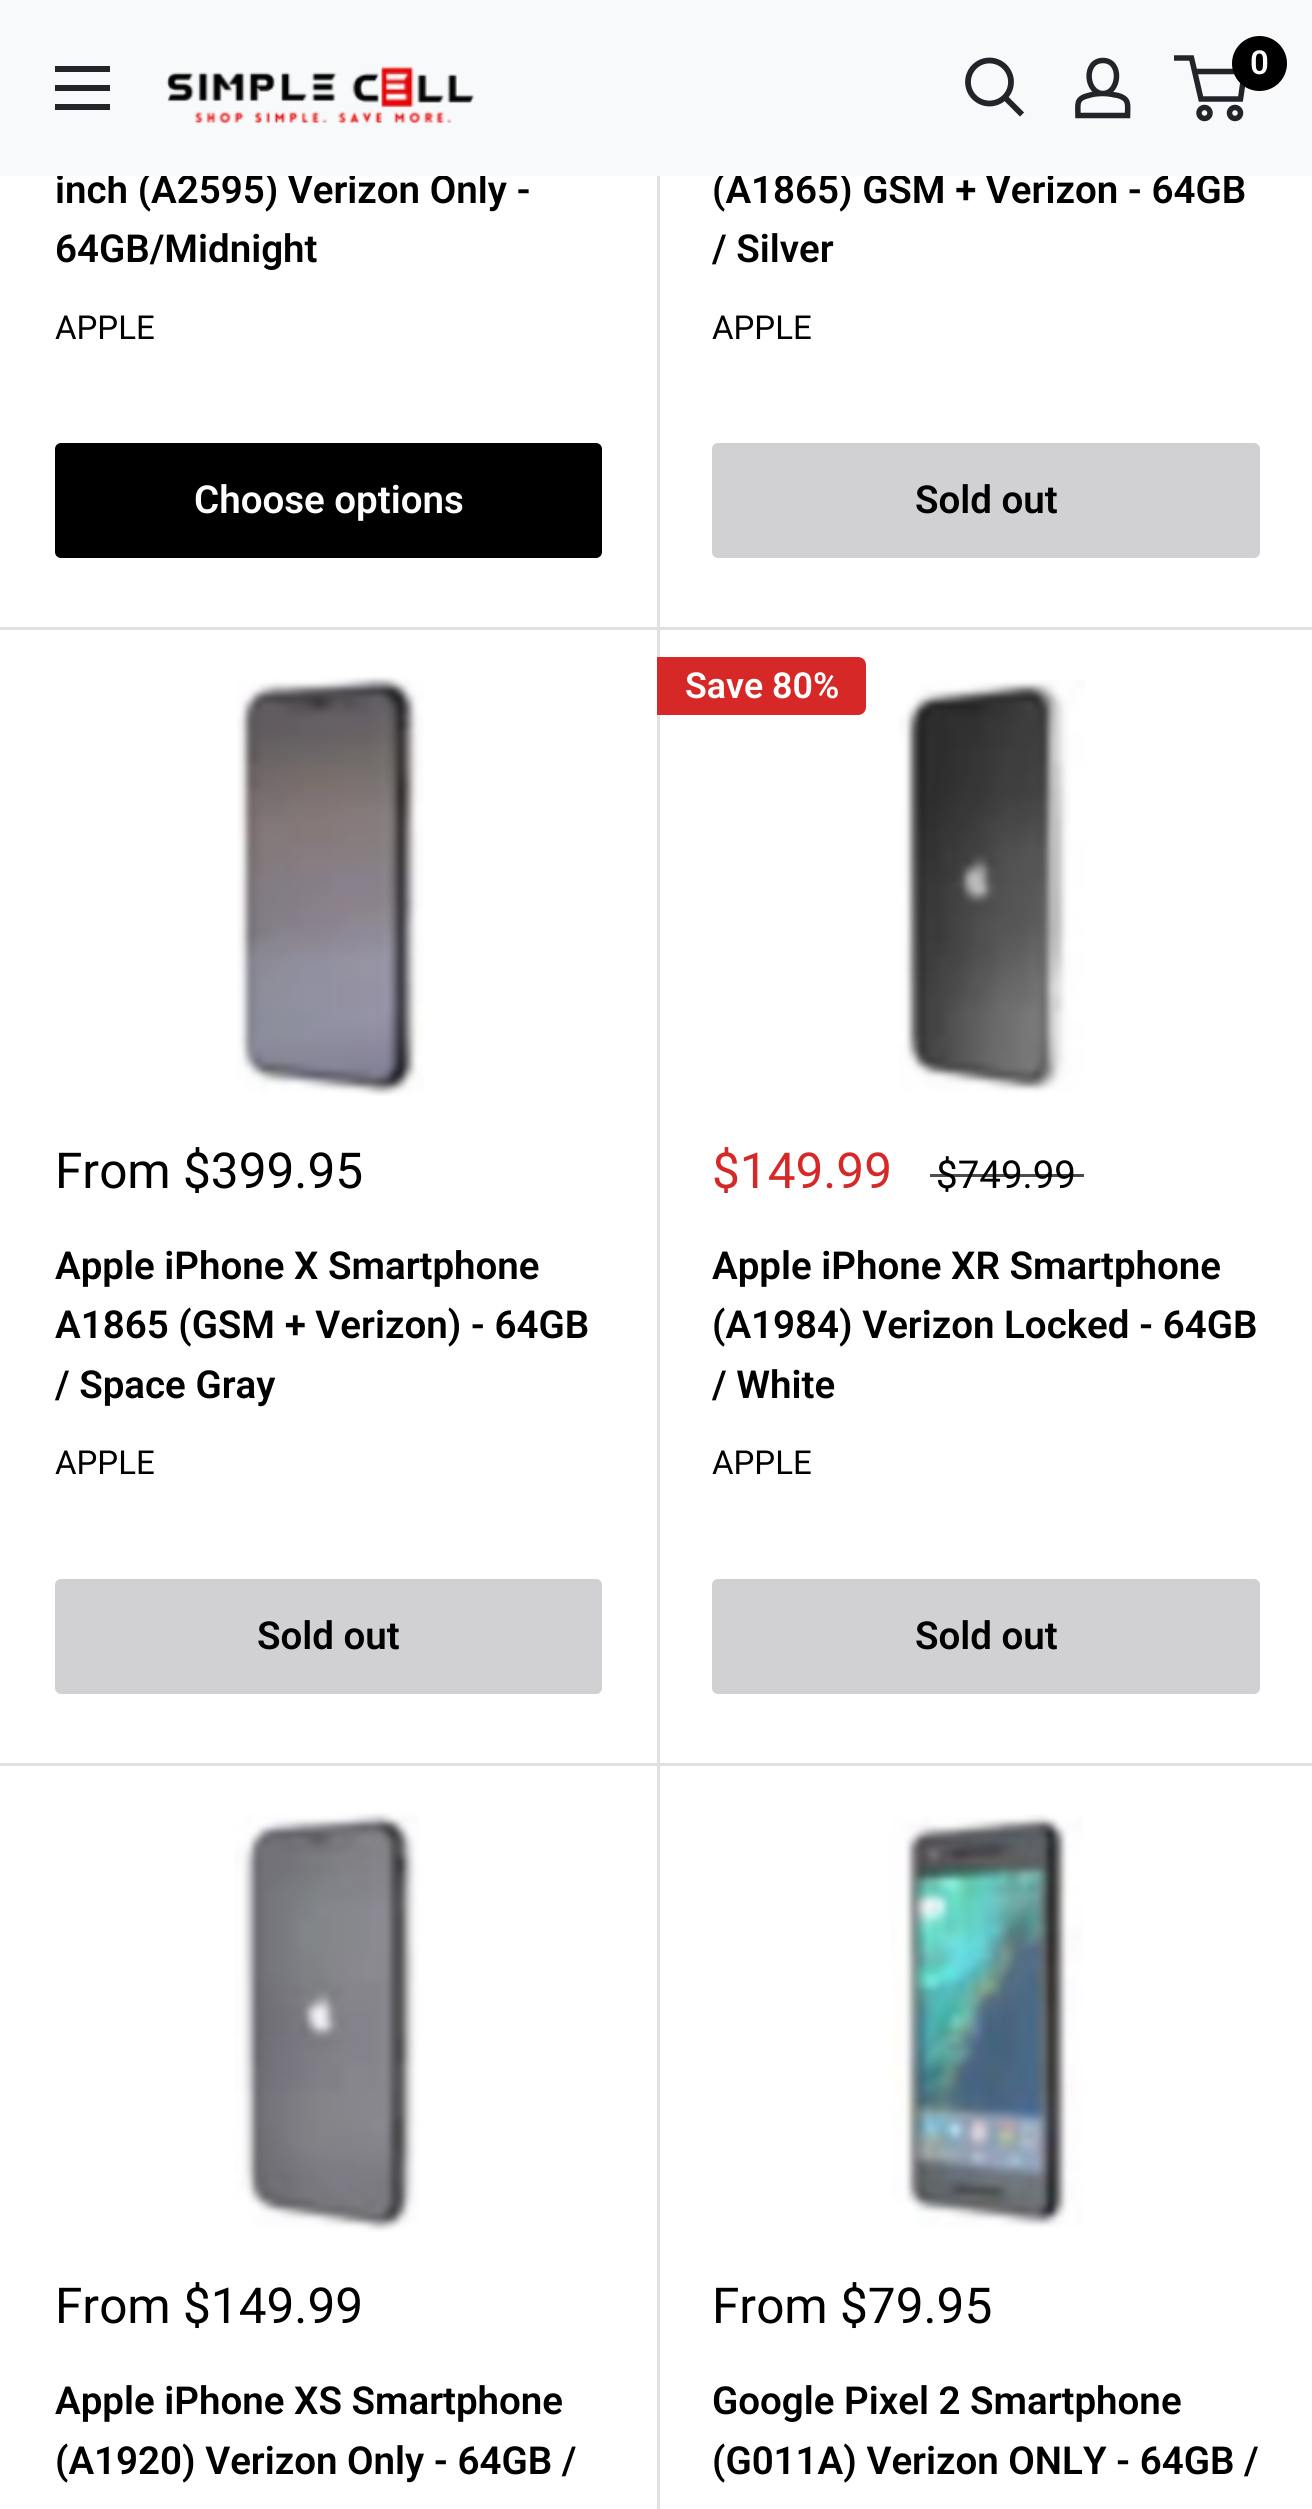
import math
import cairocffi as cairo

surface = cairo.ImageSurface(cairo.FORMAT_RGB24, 1312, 2509)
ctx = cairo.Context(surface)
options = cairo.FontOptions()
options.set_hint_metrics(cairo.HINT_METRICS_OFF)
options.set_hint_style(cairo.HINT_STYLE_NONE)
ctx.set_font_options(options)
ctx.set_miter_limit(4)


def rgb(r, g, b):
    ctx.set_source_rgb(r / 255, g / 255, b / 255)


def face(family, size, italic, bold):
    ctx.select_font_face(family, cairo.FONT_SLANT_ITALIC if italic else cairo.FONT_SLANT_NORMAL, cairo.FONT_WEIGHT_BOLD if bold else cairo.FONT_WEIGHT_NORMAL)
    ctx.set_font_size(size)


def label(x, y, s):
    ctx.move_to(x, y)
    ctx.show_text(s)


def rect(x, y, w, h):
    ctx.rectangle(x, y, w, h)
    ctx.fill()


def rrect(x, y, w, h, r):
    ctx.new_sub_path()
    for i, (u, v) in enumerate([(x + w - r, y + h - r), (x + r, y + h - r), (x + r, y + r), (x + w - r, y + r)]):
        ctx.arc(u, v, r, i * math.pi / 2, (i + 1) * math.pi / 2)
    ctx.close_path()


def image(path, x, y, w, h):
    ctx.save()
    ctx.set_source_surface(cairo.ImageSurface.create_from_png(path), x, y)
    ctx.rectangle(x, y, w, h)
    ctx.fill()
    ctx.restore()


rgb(255, 255, 255)
ctx.paint()
rgb(224, 224, 224)
ctx.new_path()
ctx.move_to(3, -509)
ctx.line_to(657, -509)
ctx.line_to(657, 627)
ctx.line_to(660, 627)
ctx.line_to(660, -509)
ctx.close_path()
ctx.fill()
face('Roboto SemiBold', 38.5, 0, 0)
rgb(0, 0, 0)
label(55, 203, 'inch (A2595) Verizon Only -')
label(712, 203, '(A1865) GSM + Verizon - 64GB')
rgb(248, 249, 250)
rect(0, 0, 1312, 176)
ctx.new_path()
ctx.move_to(1020, 112.5)
ctx.line_to(1005.5, 98)
rgb(33, 37, 41)
ctx.set_line_width(5.8)
ctx.set_line_cap(cairo.LINE_CAP_SQUARE)
ctx.stroke()
ctx.arc(989.5, 82, 21.5, 0, 2 * math.pi)
ctx.set_line_cap(cairo.LINE_CAP_BUTT)
ctx.stroke()
ctx.new_path()
ctx.move_to(1103, 93.5)
ctx.curve_to(1108, 93.5, 1113, 94.5, 1118, 95.5)
ctx.curve_to(1130, 99, 1127.5, 105, 1127.5, 115.5)
ctx.line_to(1078, 115.5)
ctx.curve_to(1078, 104.5, 1075.5, 98.5, 1088.5, 95.5)
ctx.curve_to(1093, 94, 1098, 93.5, 1103, 93.5)
ctx.close_path()
ctx.move_to(1103, 93.5)
ctx.curve_to(1086, 93.5, 1083, 60.5, 1103, 60.5)
ctx.curve_to(1122.5, 60.5, 1119.5, 93.5, 1103, 93.5)
ctx.close_path()
ctx.set_line_width(5.5)
ctx.stroke()
ctx.arc(1204.5, 113, 5.5, 0, 2 * math.pi)
ctx.stroke()
ctx.arc(1235, 113, 5.5, 0, 2 * math.pi)
ctx.stroke()
ctx.new_path()
ctx.move_to(1194.5, 71.5)
ctx.line_to(1244.5, 71.5)
ctx.line_to(1240.5, 99)
ctx.line_to(1201, 99)
ctx.line_to(1191.5, 58)
ctx.line_to(1174, 58)
ctx.stroke()
rgb(0, 0, 0)
ctx.arc(1259.5, 63.5, 27.5, 0, 2 * math.pi)
ctx.fill()
face('Roboto SemiBold', 33, 0, 0)
rgb(255, 255, 255)
label(1250, 74, '0')
rgb(33, 37, 41)
ctx.set_fill_rule(cairo.FILL_RULE_EVEN_ODD)
ctx.new_path()
ctx.move_to(55, 104)
ctx.line_to(110, 104)
ctx.line_to(110, 110)
ctx.line_to(55, 110)
ctx.close_path()
ctx.move_to(55, 66)
ctx.line_to(110, 66)
ctx.line_to(110, 72)
ctx.line_to(55, 72)
ctx.close_path()
ctx.move_to(55, 85)
ctx.line_to(110, 85)
ctx.line_to(110, 91)
ctx.line_to(55, 91)
ctx.close_path()
ctx.fill()
image('image0.png', 166, 66, 308, 58)
rgb(224, 224, 224)
rect(0, 627, 657, 3)
face('Roboto SemiBold', 38.5, 0, 0)
rgb(0, 0, 0)
label(55, 262, '64GB/Midnight')
face('Roboto', 33, 0, 0)
label(55, 339, 'APPLE')
rrect(55, 443, 547, 115, 6)
ctx.fill()
face('Roboto SemiBold', 38.5, 0, 0)
rgb(255, 255, 255)
label(194, 513, 'Choose options')
rgb(0, 0, 0)
label(712, 262, '/ Silver')
face('Roboto', 33, 0, 0)
label(712, 339, 'APPLE')
rgb(209, 209, 212)
rrect(713.5, 444.5, 545, 112, 4.5)
ctx.fill_preserve()
ctx.set_line_width(3)
ctx.stroke()
face('Roboto SemiBold', 38.5, 0, 0)
rgb(0, 0, 0)
label(915, 513, 'Sold out')
rgb(224, 224, 224)
ctx.set_fill_rule(cairo.FILL_RULE_WINDING)
ctx.new_path()
ctx.move_to(657, -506)
ctx.line_to(657, 630)
ctx.line_to(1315, 630)
ctx.line_to(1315, -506)
ctx.line_to(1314, -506)
ctx.line_to(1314, 627)
ctx.line_to(657, 627)
ctx.close_path()
ctx.fill()
rect(0, 1763, 657, 3)
ctx.new_path()
ctx.move_to(3, 1763)
ctx.line_to(660, 1763)
ctx.line_to(660, 627)
ctx.line_to(657, 627)
ctx.line_to(657, 1763)
ctx.close_path()
ctx.fill()
image('image1.png', 237, 676, 187, 420)
face('Roboto', 49.5, 0, 0)
rgb(0, 0, 0)
label(55, 1188, 'From $399.95')
face('Roboto SemiBold', 38.5, 0, 0)
label(55, 1279, 'Apple iPhone X Smartphone')
label(55, 1338, 'A1865 (GSM + Verizon) - 64GB')
label(55, 1398, '/ Space Gray')
face('Roboto', 33, 0, 0)
label(55, 1474, 'APPLE')
rgb(209, 209, 212)
rrect(56.5, 1580.5, 544, 112, 4.5)
ctx.fill_preserve()
ctx.stroke()
face('Roboto SemiBold', 38.5, 0, 0)
rgb(0, 0, 0)
label(257, 1649, 'Sold out')
rgb(215, 40, 40)
ctx.new_path()
ctx.move_to(657, 657)
ctx.line_to(858, 657)
ctx.curve_to(862.5, 657, 866, 660.5, 866, 665)
ctx.line_to(866, 707)
ctx.curve_to(866, 711.5, 862.5, 715, 858, 715)
ctx.line_to(657, 715)
ctx.close_path()
ctx.fill()
face('Roboto SemiBold', 35.75, 0, 0)
rgb(255, 255, 255)
label(685, 698, 'Save 80%')
image('image2.png', 899, 680, 186, 413)
face('Roboto', 49.5, 0, 0)
rgb(215, 40, 40)
label(712, 1188, '$149.99')
face('Roboto', 38.5, 0, 0)
rgb(0, 0, 0)
label(936, 1188, '$749.99')
ctx.set_source_rgba(0, 0, 0, 0.7)
rect(930, 1174, 154, 3)
face('Roboto SemiBold', 38.5, 0, 0)
rgb(0, 0, 0)
label(712, 1279, 'Apple iPhone XR Smartphone')
label(712, 1338, '(A1984) Verizon Locked - 64GB')
label(712, 1398, '/ White')
face('Roboto', 33, 0, 0)
label(712, 1474, 'APPLE')
rgb(209, 209, 212)
rrect(713.5, 1580.5, 545, 112, 4.5)
ctx.fill_preserve()
ctx.stroke()
face('Roboto SemiBold', 38.5, 0, 0)
rgb(0, 0, 0)
label(915, 1649, 'Sold out')
rgb(224, 224, 224)
ctx.new_path()
ctx.move_to(657, 630)
ctx.line_to(657, 1766)
ctx.line_to(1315, 1766)
ctx.line_to(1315, 630)
ctx.line_to(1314, 630)
ctx.line_to(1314, 1763)
ctx.line_to(657, 1763)
ctx.close_path()
ctx.fill()
image('image3.png', 234, 1812, 185, 420)
ctx.new_path()
ctx.move_to(3, 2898)
ctx.line_to(3, 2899)
ctx.line_to(660, 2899)
ctx.line_to(660, 1763)
ctx.line_to(657, 1763)
ctx.line_to(657, 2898)
ctx.close_path()
ctx.fill()
face('Roboto', 49.5, 0, 0)
rgb(0, 0, 0)
label(55, 2323, 'From $149.99')
face('Roboto SemiBold', 38.5, 0, 0)
label(55, 2414, 'Apple iPhone XS Smartphone')
label(55, 2474, '(A1920) Verizon Only - 64GB /')
image('image4.png', 889, 1814, 194, 414)
face('Roboto', 49.5, 0, 0)
label(712, 2323, 'From $79.95')
face('Roboto SemiBold', 38.5, 0, 0)
label(712, 2414, 'Google Pixel 2 Smartphone')
label(712, 2474, '(G011A) Verizon ONLY - 64GB /')
surface.write_to_png('render.png')
